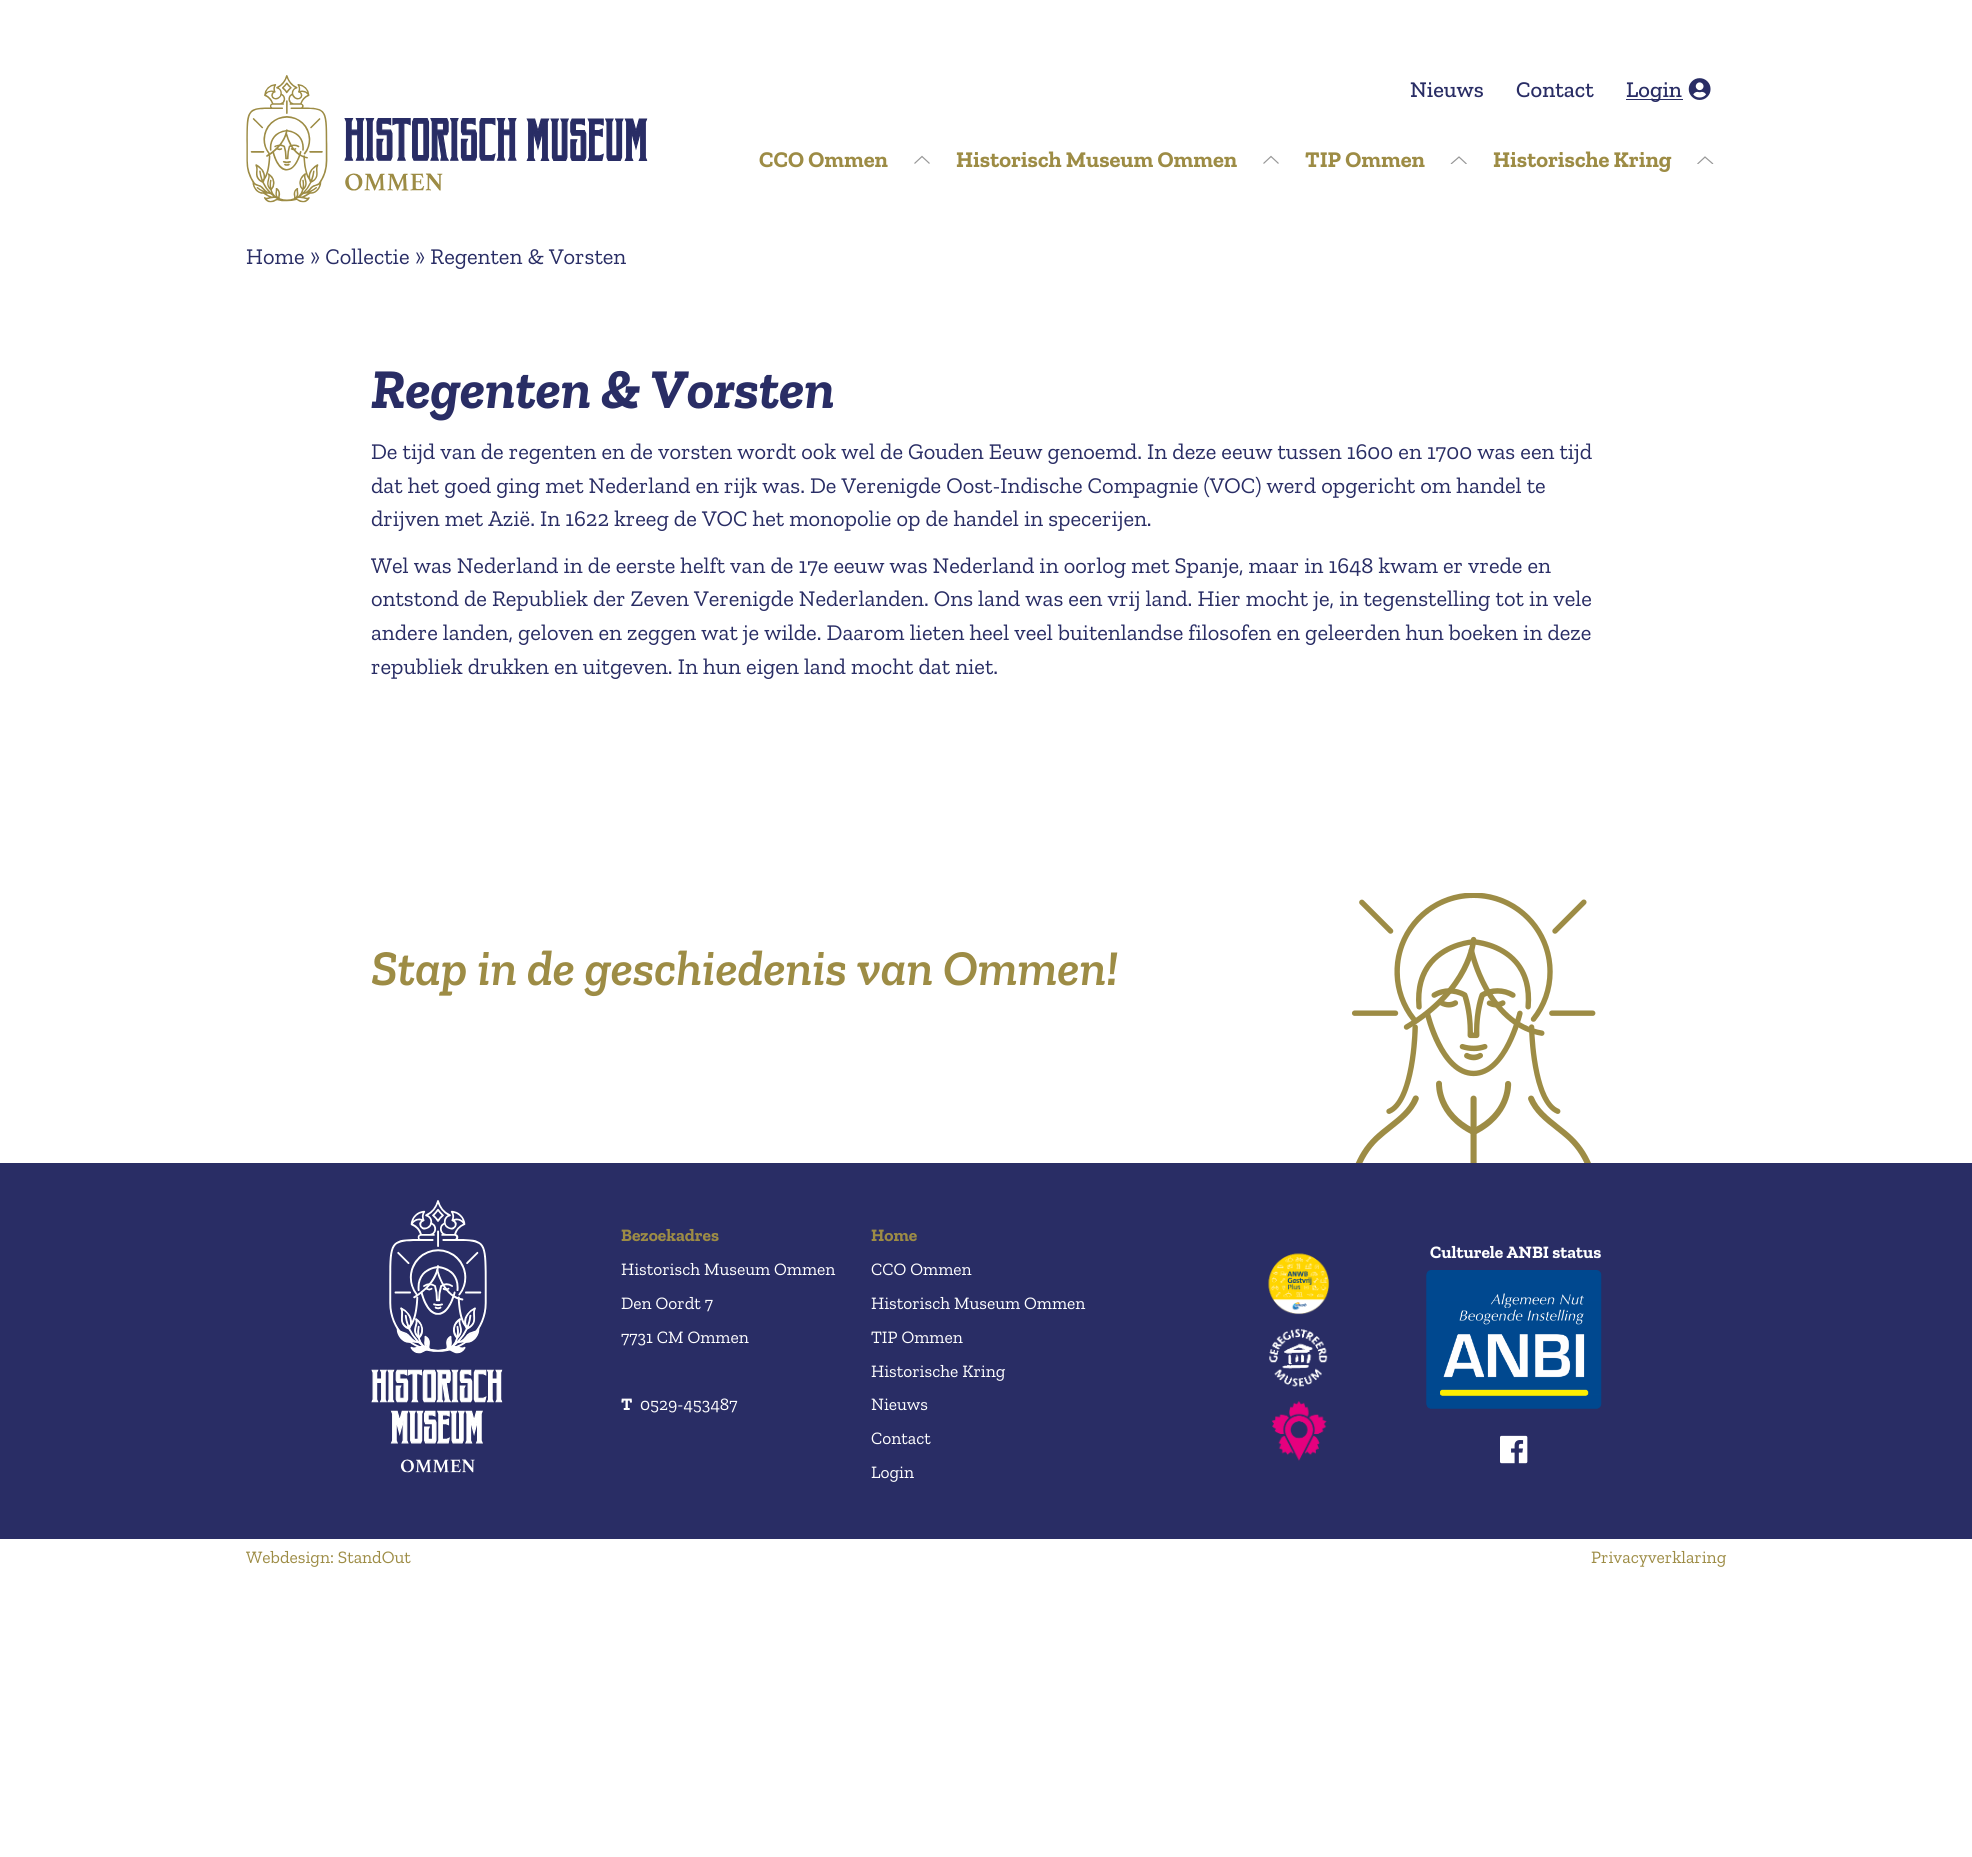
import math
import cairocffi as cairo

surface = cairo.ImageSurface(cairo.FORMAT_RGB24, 1972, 1857)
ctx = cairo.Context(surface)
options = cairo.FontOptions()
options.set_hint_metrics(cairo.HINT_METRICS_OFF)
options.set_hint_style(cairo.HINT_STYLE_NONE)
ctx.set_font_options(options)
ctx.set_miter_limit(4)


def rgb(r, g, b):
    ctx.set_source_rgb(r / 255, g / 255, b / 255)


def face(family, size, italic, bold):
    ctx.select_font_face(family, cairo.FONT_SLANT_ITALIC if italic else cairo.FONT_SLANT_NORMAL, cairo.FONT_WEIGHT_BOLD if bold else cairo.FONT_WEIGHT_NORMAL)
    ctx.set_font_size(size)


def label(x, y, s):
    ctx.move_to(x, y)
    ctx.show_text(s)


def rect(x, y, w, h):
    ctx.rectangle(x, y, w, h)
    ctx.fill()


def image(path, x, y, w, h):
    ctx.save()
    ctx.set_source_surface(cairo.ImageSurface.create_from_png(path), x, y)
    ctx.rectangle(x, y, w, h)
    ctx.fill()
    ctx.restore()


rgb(255, 255, 255)
ctx.paint()
image('image0.png', 246, 75, 402, 128)
face('Zilla Slab Medium', 22.5, 0, 0)
rgb(41, 45, 101)
label(1410, 97, 'Nieuws')
label(1516, 97, 'Contact')
rect(1626, 99, 57, 1)
label(1626, 97, 'Login')
image('image1.png', 1688, 78, 23, 22)
face('Zilla Slab', 22.5, 0, 1)
rgb(157, 140, 69)
label(759, 167, 'CCO Ommen')
ctx.new_path()
ctx.move_to(914.5, 163.5)
ctx.line_to(922, 156.5)
ctx.line_to(929.5, 163.5)
rgb(151, 151, 151)
ctx.set_line_width(1.2)
ctx.stroke()
rgb(157, 140, 69)
label(956, 167, 'Historisch Museum Ommen')
ctx.new_path()
ctx.move_to(1263.5, 163.5)
ctx.line_to(1271, 156.5)
ctx.line_to(1278.5, 163.5)
rgb(151, 151, 151)
ctx.stroke()
rgb(157, 140, 69)
label(1305, 167, 'TIP Ommen')
ctx.save()
ctx.new_path()
ctx.move_to(1450.5, 164)
ctx.line_to(1450.5, 156)
ctx.line_to(1467, 156)
ctx.line_to(1467, 164)
ctx.close_path()
ctx.clip()
ctx.new_path()
ctx.move_to(1451, 164)
ctx.line_to(1459, 157)
ctx.line_to(1466.5, 164)
rgb(151, 151, 151)
ctx.stroke()
ctx.restore()
label(1493, 167, 'Historische Kring')
ctx.save()
ctx.new_path()
ctx.move_to(1697, 164)
ctx.line_to(1697, 156)
ctx.line_to(1713.5, 156)
ctx.line_to(1713.5, 164)
ctx.close_path()
ctx.clip()
ctx.new_path()
ctx.move_to(1697.5, 164)
ctx.line_to(1705, 157)
ctx.line_to(1713, 164)
rgb(151, 151, 151)
ctx.stroke()
ctx.restore()
face('Zilla Slab', 22.5, 0, 0)
rgb(41, 45, 101)
label(246, 264, 'Home')
label(310, 264, '» Collectie')
label(415, 264, '» Regenten & Vorsten')
face('Zilla Slab', 56.25, 1, 1)
label(371, 408, 'Regenten & Vorsten')
face('Zilla Slab', 22.5, 0, 0)
label(371, 459, 'De tijd van de regenten en de vorsten wordt ook wel de Gouden Eeuw genoemd. In deze eeuw tussen 1600 en 1700 was een tijd')
label(371, 493, 'dat het goed ging met Nederland en rijk was. De Verenigde Oost-Indische Compagnie (VOC) werd opgericht om handel te')
label(371, 526, 'drijven met Azië. In 1622 kreeg de VOC het monopolie op de handel in specerijen.')
label(371, 573, 'Wel was Nederland in de eerste helft van de 17e eeuw was Nederland in oorlog met Spanje, maar in 1648 kwam er vrede en')
label(371, 606, 'ontstond de Republiek der Zeven Verenigde Nederlanden. Ons land was een vrij land. Hier mocht je, in tegenstelling tot in vele')
label(371, 640, 'andere landen, geloven en zeggen wat je wilde. Daarom lieten heel veel buitenlandse filosofen en geleerden hun boeken in deze')
label(371, 674, 'republiek drukken en uitgeven. In hun eigen land mocht dat niet.')
face('Zilla Slab SemiBold', 50, 1, 0)
rgb(157, 140, 69)
label(371, 985, 'Stap in de geschiedenis van Ommen!')
image('image2.png', 1351, 893, 245, 270)
rgb(41, 45, 101)
rect(0, 1163, 1972, 376)
image('image3.png', 371, 1200, 132, 273)
face('Zilla Slab', 17.5, 0, 1)
rgb(157, 140, 69)
label(621, 1241, 'Bezoekadres')
face('Zilla Slab', 17.5, 0, 0)
rgb(255, 255, 255)
label(621, 1275, 'Historisch Museum Ommen')
label(621, 1309, 'Den Oordt 7')
label(621, 1343, '7731 CM Ommen')
face('Zilla Slab', 17.5, 0, 1)
label(621, 1410, 'T')
face('Zilla Slab', 17.5, 0, 0)
label(640, 1410, '0529-453487')
face('Zilla Slab', 17.5, 0, 1)
rgb(157, 140, 69)
label(871, 1241, 'Home')
face('Zilla Slab', 17.5, 0, 0)
rgb(255, 255, 255)
label(871, 1275, 'CCO Ommen')
label(871, 1309, 'Historisch Museum Ommen')
label(871, 1343, 'TIP Ommen')
label(871, 1377, 'Historische Kring')
label(871, 1410, 'Nieuws')
label(871, 1444, 'Contact')
label(871, 1478, 'Login')
image('image4.png', 1268, 1253, 62, 62)
image('image5.png', 1269, 1328, 59, 59)
image('image6.png', 1271, 1401, 56, 60)
face('Zilla Slab', 17.5, 0, 1)
label(1430, 1258, 'Culturele ANBI status')
image('image7.png', 1426, 1270, 176, 139)
image('image8.png', 1500, 1435, 28, 29)
face('Zilla Slab', 17.5, 0, 0)
rgb(157, 140, 69)
label(246, 1563, 'Webdesign: StandOut')
label(1591, 1563, 'Privacyverklaring')
surface.write_to_png('render.png')
